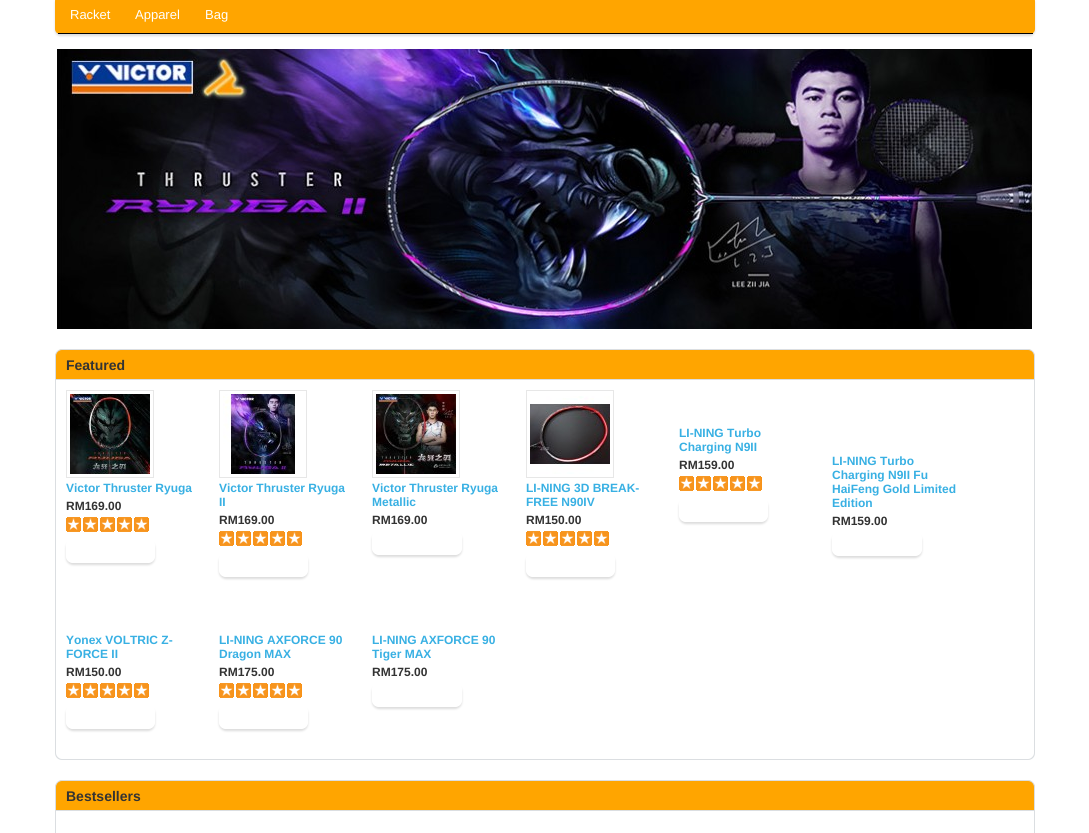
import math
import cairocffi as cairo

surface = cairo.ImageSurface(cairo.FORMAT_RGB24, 1089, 833)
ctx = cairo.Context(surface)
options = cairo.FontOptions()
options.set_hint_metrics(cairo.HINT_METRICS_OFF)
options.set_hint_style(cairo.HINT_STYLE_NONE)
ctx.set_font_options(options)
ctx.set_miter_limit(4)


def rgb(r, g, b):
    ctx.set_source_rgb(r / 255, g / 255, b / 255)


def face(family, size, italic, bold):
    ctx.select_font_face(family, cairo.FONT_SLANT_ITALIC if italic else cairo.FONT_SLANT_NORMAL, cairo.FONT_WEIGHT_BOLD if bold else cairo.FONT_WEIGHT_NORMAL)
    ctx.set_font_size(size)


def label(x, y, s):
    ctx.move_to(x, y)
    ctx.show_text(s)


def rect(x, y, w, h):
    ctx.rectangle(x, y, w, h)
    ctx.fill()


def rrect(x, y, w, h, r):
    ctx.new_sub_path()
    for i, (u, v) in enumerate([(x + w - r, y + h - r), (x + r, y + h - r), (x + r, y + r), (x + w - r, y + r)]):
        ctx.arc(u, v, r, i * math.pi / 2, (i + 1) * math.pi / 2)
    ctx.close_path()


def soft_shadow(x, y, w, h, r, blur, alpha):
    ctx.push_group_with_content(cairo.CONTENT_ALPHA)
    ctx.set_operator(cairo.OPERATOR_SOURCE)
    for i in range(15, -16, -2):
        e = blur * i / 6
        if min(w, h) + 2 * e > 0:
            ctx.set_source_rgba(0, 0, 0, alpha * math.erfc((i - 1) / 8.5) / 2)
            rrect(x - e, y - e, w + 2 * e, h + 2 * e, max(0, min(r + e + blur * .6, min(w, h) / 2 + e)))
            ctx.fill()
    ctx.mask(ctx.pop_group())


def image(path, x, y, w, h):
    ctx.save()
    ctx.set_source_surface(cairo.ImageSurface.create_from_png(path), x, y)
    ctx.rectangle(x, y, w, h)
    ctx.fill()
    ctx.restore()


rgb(255, 255, 255)
ctx.paint()
rgb(221, 221, 221)
soft_shadow(55, -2, 980, 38, 5, 1, 1)
rgb(255, 165, 0)
rrect(55, -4, 980, 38, 5)
ctx.fill()
rgb(0, 0, 0)
rect(58, 33, 975, 1)
face('Liberation Sans', 13, 0, 0)
rgb(255, 255, 255)
label(70, 19, 'Racket')
label(135, 19, 'Apparel')
label(205, 19, 'Bag')
image('image0.png', 57, 49, 978, 280)
rgb(255, 165, 0)
ctx.new_path()
ctx.move_to(62, 349.5)
ctx.line_to(1028, 349.5)
ctx.curve_to(1031.5, 349.5, 1034.5, 352.5, 1034.5, 356)
ctx.line_to(1034.5, 379.5)
ctx.line_to(55.5, 379.5)
ctx.line_to(55.5, 356)
ctx.curve_to(55.5, 352.5, 58.5, 349.5, 62, 349.5)
ctx.close_path()
ctx.fill_preserve()
rgb(219, 222, 225)
ctx.set_line_width(1)
ctx.stroke()
face('Liberation Sans', 14, 0, 1)
rgb(51, 51, 51)
label(66, 370, 'Featured')
rgb(219, 222, 225)
ctx.set_fill_rule(cairo.FILL_RULE_EVEN_ODD)
ctx.new_path()
ctx.move_to(55, 380)
ctx.line_to(1035, 380)
ctx.line_to(1035, 753)
ctx.curve_to(1035, 757, 1032, 760, 1028, 760)
ctx.line_to(62, 760)
ctx.curve_to(58, 760, 55, 757, 55, 753)
ctx.close_path()
ctx.move_to(56, 380)
ctx.line_to(1034, 380)
ctx.line_to(1034, 753)
ctx.curve_to(1034, 756, 1031, 759, 1028, 759)
ctx.line_to(62, 759)
ctx.curve_to(59, 759, 56, 756, 56, 753)
ctx.close_path()
ctx.fill()
face('Liberation Sans', 12, 0, 1)
rgb(56, 176, 227)
label(679, 437, 'LI-NING Turbo')
label(679, 451, 'Charging N9II')
rgb(51, 51, 51)
label(679, 469, 'RM159.00')
image('image1.png', 679, 476, 83, 15)
ctx.save()
ctx.new_path()
ctx.move_to(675, 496)
ctx.line_to(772, 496)
ctx.line_to(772, 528)
ctx.line_to(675, 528)
ctx.close_path()
ctx.move_to(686, 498)
ctx.line_to(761, 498)
ctx.curve_to(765, 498, 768, 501, 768, 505)
ctx.line_to(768, 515)
ctx.curve_to(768, 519, 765, 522, 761, 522)
ctx.line_to(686, 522)
ctx.curve_to(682, 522, 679, 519, 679, 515)
ctx.line_to(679, 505)
ctx.curve_to(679, 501, 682, 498, 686, 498)
ctx.close_path()
ctx.clip()
rgb(221, 221, 221)
soft_shadow(679, 500, 89, 24, 7, 1, 1)
ctx.restore()
ctx.rectangle(66.5, 390.5, 87, 87)
rgb(231, 231, 231)
ctx.stroke()
image('image2.png', 70, 394, 80, 80)
rgb(56, 176, 227)
label(66, 492, 'Victor Thruster Ryuga')
rgb(51, 51, 51)
label(66, 510, 'RM169.00')
image('image1.png', 66, 517, 83, 15)
ctx.save()
ctx.new_path()
ctx.move_to(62, 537)
ctx.line_to(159, 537)
ctx.line_to(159, 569)
ctx.line_to(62, 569)
ctx.close_path()
ctx.move_to(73, 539)
ctx.line_to(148, 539)
ctx.curve_to(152, 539, 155, 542, 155, 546)
ctx.line_to(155, 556)
ctx.curve_to(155, 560, 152, 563, 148, 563)
ctx.line_to(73, 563)
ctx.curve_to(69, 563, 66, 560, 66, 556)
ctx.line_to(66, 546)
ctx.curve_to(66, 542, 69, 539, 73, 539)
ctx.close_path()
ctx.clip()
rgb(221, 221, 221)
soft_shadow(66, 541, 89, 24, 7, 1, 1)
ctx.restore()
ctx.rectangle(219.5, 390.5, 87, 87)
rgb(231, 231, 231)
ctx.stroke()
image('image3.png', 223, 394, 72, 80)
rgb(56, 176, 227)
label(219, 492, 'Victor Thruster Ryuga')
label(219, 506, 'II')
rgb(51, 51, 51)
label(219, 524, 'RM169.00')
image('image1.png', 219, 531, 83, 15)
ctx.save()
ctx.new_path()
ctx.move_to(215, 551)
ctx.line_to(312, 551)
ctx.line_to(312, 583)
ctx.line_to(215, 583)
ctx.close_path()
ctx.move_to(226, 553)
ctx.line_to(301, 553)
ctx.curve_to(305, 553, 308, 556, 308, 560)
ctx.line_to(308, 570)
ctx.curve_to(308, 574, 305, 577, 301, 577)
ctx.line_to(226, 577)
ctx.curve_to(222, 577, 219, 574, 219, 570)
ctx.line_to(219, 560)
ctx.curve_to(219, 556, 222, 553, 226, 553)
ctx.close_path()
ctx.clip()
rgb(221, 221, 221)
soft_shadow(219, 555, 89, 24, 7, 1, 1)
ctx.restore()
ctx.rectangle(372.5, 390.5, 87, 87)
rgb(231, 231, 231)
ctx.stroke()
image('image4.png', 376, 394, 80, 80)
rgb(56, 176, 227)
label(372, 492, 'Victor Thruster Ryuga')
label(372, 506, 'Metallic')
rgb(51, 51, 51)
label(372, 524, 'RM169.00')
ctx.save()
ctx.new_path()
ctx.move_to(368, 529)
ctx.line_to(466, 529)
ctx.line_to(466, 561)
ctx.line_to(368, 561)
ctx.close_path()
ctx.move_to(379, 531)
ctx.line_to(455, 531)
ctx.curve_to(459, 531, 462, 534, 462, 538)
ctx.line_to(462, 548)
ctx.curve_to(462, 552, 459, 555, 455, 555)
ctx.line_to(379, 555)
ctx.curve_to(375, 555, 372, 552, 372, 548)
ctx.line_to(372, 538)
ctx.curve_to(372, 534, 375, 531, 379, 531)
ctx.close_path()
ctx.clip()
rgb(221, 221, 221)
soft_shadow(372, 533, 90, 24, 7, 1, 1)
ctx.restore()
ctx.rectangle(526.5, 390.5, 87, 87)
rgb(231, 231, 231)
ctx.stroke()
image('image5.png', 530, 396, 80, 78)
rgb(56, 176, 227)
label(526, 492, 'LI-NING 3D BREAK-')
label(526, 506, 'FREE N90IV')
rgb(51, 51, 51)
label(526, 524, 'RM150.00')
image('image1.png', 526, 531, 83, 15)
ctx.save()
ctx.new_path()
ctx.move_to(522, 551)
ctx.line_to(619, 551)
ctx.line_to(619, 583)
ctx.line_to(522, 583)
ctx.close_path()
ctx.move_to(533, 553)
ctx.line_to(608, 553)
ctx.curve_to(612, 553, 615, 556, 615, 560)
ctx.line_to(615, 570)
ctx.curve_to(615, 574, 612, 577, 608, 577)
ctx.line_to(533, 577)
ctx.curve_to(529, 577, 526, 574, 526, 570)
ctx.line_to(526, 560)
ctx.curve_to(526, 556, 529, 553, 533, 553)
ctx.close_path()
ctx.clip()
rgb(221, 221, 221)
soft_shadow(526, 555, 89, 24, 7, 1, 1)
ctx.restore()
rgb(56, 176, 227)
label(832, 465, 'LI-NING Turbo')
label(832, 479, 'Charging N9II Fu')
label(832, 493, 'HaiFeng Gold Limited')
label(832, 507, 'Edition')
rgb(51, 51, 51)
label(832, 525, 'RM159.00')
ctx.save()
ctx.new_path()
ctx.move_to(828, 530)
ctx.line_to(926, 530)
ctx.line_to(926, 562)
ctx.line_to(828, 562)
ctx.close_path()
ctx.move_to(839, 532)
ctx.line_to(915, 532)
ctx.curve_to(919, 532, 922, 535, 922, 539)
ctx.line_to(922, 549)
ctx.curve_to(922, 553, 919, 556, 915, 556)
ctx.line_to(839, 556)
ctx.curve_to(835, 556, 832, 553, 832, 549)
ctx.line_to(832, 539)
ctx.curve_to(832, 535, 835, 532, 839, 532)
ctx.close_path()
ctx.clip()
rgb(221, 221, 221)
soft_shadow(832, 534, 90, 24, 7, 1, 1)
ctx.restore()
rgb(56, 176, 227)
label(66, 644, 'Yonex VOLTRIC Z-')
label(66, 658, 'FORCE II')
rgb(51, 51, 51)
label(66, 676, 'RM150.00')
image('image1.png', 66, 683, 83, 15)
ctx.save()
ctx.new_path()
ctx.move_to(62, 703)
ctx.line_to(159, 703)
ctx.line_to(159, 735)
ctx.line_to(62, 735)
ctx.close_path()
ctx.move_to(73, 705)
ctx.line_to(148, 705)
ctx.curve_to(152, 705, 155, 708, 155, 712)
ctx.line_to(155, 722)
ctx.curve_to(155, 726, 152, 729, 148, 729)
ctx.line_to(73, 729)
ctx.curve_to(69, 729, 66, 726, 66, 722)
ctx.line_to(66, 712)
ctx.curve_to(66, 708, 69, 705, 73, 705)
ctx.close_path()
ctx.clip()
rgb(221, 221, 221)
soft_shadow(66, 707, 89, 24, 7, 1, 1)
ctx.restore()
rgb(56, 176, 227)
label(219, 644, 'LI-NING AXFORCE 90')
label(219, 658, 'Dragon MAX')
rgb(51, 51, 51)
label(219, 676, 'RM175.00')
image('image1.png', 219, 683, 83, 15)
ctx.save()
ctx.new_path()
ctx.move_to(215, 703)
ctx.line_to(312, 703)
ctx.line_to(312, 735)
ctx.line_to(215, 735)
ctx.close_path()
ctx.move_to(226, 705)
ctx.line_to(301, 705)
ctx.curve_to(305, 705, 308, 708, 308, 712)
ctx.line_to(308, 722)
ctx.curve_to(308, 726, 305, 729, 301, 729)
ctx.line_to(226, 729)
ctx.curve_to(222, 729, 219, 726, 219, 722)
ctx.line_to(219, 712)
ctx.curve_to(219, 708, 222, 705, 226, 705)
ctx.close_path()
ctx.clip()
rgb(221, 221, 221)
soft_shadow(219, 707, 89, 24, 7, 1, 1)
ctx.restore()
rgb(56, 176, 227)
label(372, 644, 'LI-NING AXFORCE 90')
label(372, 658, 'Tiger MAX')
rgb(51, 51, 51)
label(372, 676, 'RM175.00')
ctx.save()
ctx.new_path()
ctx.move_to(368, 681)
ctx.line_to(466, 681)
ctx.line_to(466, 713)
ctx.line_to(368, 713)
ctx.close_path()
ctx.move_to(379, 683)
ctx.line_to(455, 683)
ctx.curve_to(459, 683, 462, 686, 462, 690)
ctx.line_to(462, 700)
ctx.curve_to(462, 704, 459, 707, 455, 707)
ctx.line_to(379, 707)
ctx.curve_to(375, 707, 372, 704, 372, 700)
ctx.line_to(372, 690)
ctx.curve_to(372, 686, 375, 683, 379, 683)
ctx.close_path()
ctx.clip()
rgb(221, 221, 221)
soft_shadow(372, 685, 90, 24, 7, 1, 1)
ctx.restore()
rgb(255, 165, 0)
ctx.new_path()
ctx.move_to(62, 780.5)
ctx.line_to(1028, 780.5)
ctx.curve_to(1031.5, 780.5, 1034.5, 783.5, 1034.5, 787)
ctx.line_to(1034.5, 810.5)
ctx.line_to(55.5, 810.5)
ctx.line_to(55.5, 787)
ctx.curve_to(55.5, 783.5, 58.5, 780.5, 62, 780.5)
ctx.close_path()
ctx.fill_preserve()
rgb(219, 222, 225)
ctx.stroke()
face('Liberation Sans', 14, 0, 1)
rgb(51, 51, 51)
label(66, 801, 'Bestsellers')
rgb(219, 222, 225)
ctx.new_path()
ctx.move_to(55, 811)
ctx.line_to(1035, 811)
ctx.line_to(1035, 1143)
ctx.curve_to(1035, 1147, 1032, 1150, 1028, 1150)
ctx.line_to(62, 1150)
ctx.curve_to(58, 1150, 55, 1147, 55, 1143)
ctx.close_path()
ctx.move_to(56, 811)
ctx.line_to(1034, 811)
ctx.line_to(1034, 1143)
ctx.curve_to(1034, 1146, 1031, 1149, 1028, 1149)
ctx.line_to(62, 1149)
ctx.curve_to(59, 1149, 56, 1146, 56, 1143)
ctx.close_path()
ctx.fill()
surface.write_to_png('render.png')
